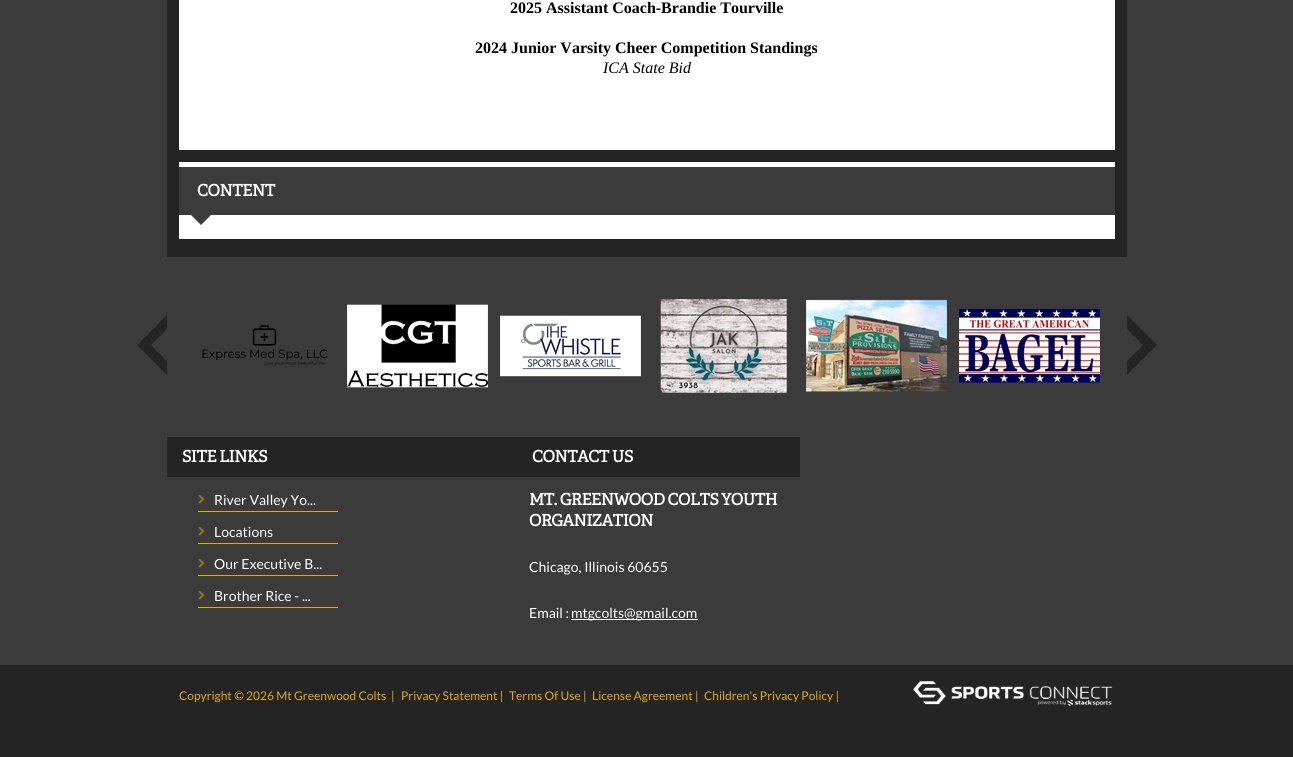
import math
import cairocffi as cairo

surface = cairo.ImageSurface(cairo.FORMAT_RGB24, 1293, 757)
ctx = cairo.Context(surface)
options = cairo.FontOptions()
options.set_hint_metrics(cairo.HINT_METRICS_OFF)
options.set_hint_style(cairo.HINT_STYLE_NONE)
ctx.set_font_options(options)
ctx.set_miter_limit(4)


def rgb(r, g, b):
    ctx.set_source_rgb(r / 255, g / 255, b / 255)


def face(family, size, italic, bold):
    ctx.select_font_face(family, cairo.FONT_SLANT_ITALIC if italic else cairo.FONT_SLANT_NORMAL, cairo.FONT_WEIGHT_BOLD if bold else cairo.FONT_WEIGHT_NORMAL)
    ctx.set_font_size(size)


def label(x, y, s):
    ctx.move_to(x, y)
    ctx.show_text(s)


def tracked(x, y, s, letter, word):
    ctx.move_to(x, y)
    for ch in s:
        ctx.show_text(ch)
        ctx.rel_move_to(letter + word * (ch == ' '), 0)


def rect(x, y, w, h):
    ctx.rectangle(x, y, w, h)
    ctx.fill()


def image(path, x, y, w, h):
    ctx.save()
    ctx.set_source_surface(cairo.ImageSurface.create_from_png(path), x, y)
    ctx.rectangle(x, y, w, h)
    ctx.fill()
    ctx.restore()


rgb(59, 59, 59)
ctx.paint()
rgb(36, 36, 36)
rect(167, 0, 960, 257)
rgb(255, 255, 255)
rect(179, 0, 936, 150)
face('Liberation Serif', 16, 0, 1)
rgb(0, 0, 0)
label(510, 13, '2025 Assistant Coach-Brandie Tourville')
label(475, 53, '2024 Junior Varsity Cheer Competition Standings')
face('Liberation Serif', 16, 1, 0)
label(603, 73, 'ICA State Bid')
rgb(59, 59, 59)
rect(179, 167, 936, 48)
rgb(255, 255, 255)
rect(179, 162, 936, 5)
face('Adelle', 16, 0, 1)
tracked(197, 196, 'CONTENT', -0.5, 0)
rect(179, 215, 936, 24)
rgb(59, 59, 59)
ctx.new_path()
ctx.move_to(191, 215)
ctx.line_to(211, 215)
ctx.line_to(201, 225)
ctx.close_path()
ctx.fill()
image('image0.png', 137, 315, 30, 60)
image('image1.png', 202, 325, 126, 41)
image('image2.png', 347, 304, 141, 84)
image('image3.png', 500, 315, 141, 62)
image('image4.png', 660, 299, 127, 94)
image('image5.png', 806, 299, 141, 93)
image('image6.png', 959, 308, 141, 75)
image('image7.png', 1127, 315, 30, 60)
rgb(36, 36, 36)
rect(167, 437, 633, 40)
rgb(255, 255, 255)
tracked(182, 462, 'SITE LINKS', -0.5, 0)
rgb(230, 169, 3)
rect(198, 511, 140, 1)
image('image8.png', 198, 494, 7, 10)
face('Lato', 14, 0, 0)
rgb(255, 255, 255)
label(214, 505, 'River Valley Yo...')
rgb(230, 169, 3)
rect(198, 543, 140, 1)
image('image8.png', 198, 526, 7, 10)
rgb(255, 255, 255)
label(214, 537, 'Locations')
rgb(230, 169, 3)
rect(198, 575, 140, 1)
image('image8.png', 198, 558, 7, 10)
rgb(255, 255, 255)
label(214, 569, 'Our Executive B...')
rgb(230, 169, 3)
rect(198, 607, 140, 1)
image('image8.png', 198, 590, 7, 10)
rgb(255, 255, 255)
label(214, 601, 'Brother Rice - ...')
face('Adelle', 16, 0, 1)
tracked(532, 462, 'CONTACT US', -0.5, 0)
tracked(529, 505, 'MT. GREENWOOD COLTS YOUTH', -0.5, 0)
tracked(529, 526, 'ORGANIZATION', -0.5, 0)
face('Lato', 14, 0, 0)
label(529, 572, 'Chicago, Illinois 60655')
label(529, 618, 'Email :')
rect(571, 619, 127, 1)
label(571, 618, 'mtgcolts@gmail.com')
rgb(36, 36, 36)
rect(0, 665, 1293, 92)
face('Lato', 12, 0, 0)
rgb(230, 169, 3)
label(179, 700, 'Copyright © 2026 Mt Greenwood Colts')
label(391, 700, '|')
label(401, 700, 'Privacy Statement |')
label(509, 700, 'Terms Of Use |')
label(592, 700, 'License Agreement |')
label(704, 700, 'Children\'s Privacy Policy |')
image('image9.png', 913, 681, 200, 25)
surface.write_to_png('render.png')
